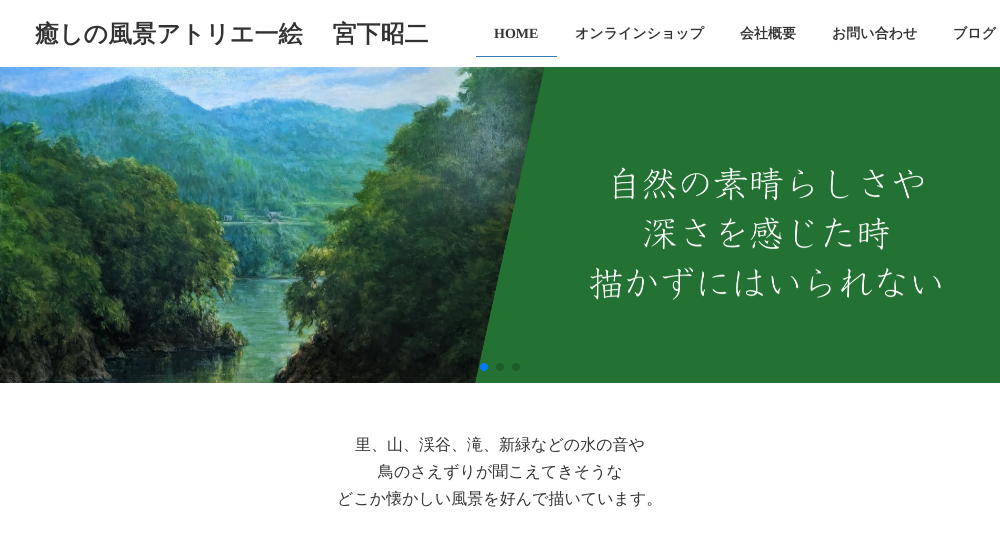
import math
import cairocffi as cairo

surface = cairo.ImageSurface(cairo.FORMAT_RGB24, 1000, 552)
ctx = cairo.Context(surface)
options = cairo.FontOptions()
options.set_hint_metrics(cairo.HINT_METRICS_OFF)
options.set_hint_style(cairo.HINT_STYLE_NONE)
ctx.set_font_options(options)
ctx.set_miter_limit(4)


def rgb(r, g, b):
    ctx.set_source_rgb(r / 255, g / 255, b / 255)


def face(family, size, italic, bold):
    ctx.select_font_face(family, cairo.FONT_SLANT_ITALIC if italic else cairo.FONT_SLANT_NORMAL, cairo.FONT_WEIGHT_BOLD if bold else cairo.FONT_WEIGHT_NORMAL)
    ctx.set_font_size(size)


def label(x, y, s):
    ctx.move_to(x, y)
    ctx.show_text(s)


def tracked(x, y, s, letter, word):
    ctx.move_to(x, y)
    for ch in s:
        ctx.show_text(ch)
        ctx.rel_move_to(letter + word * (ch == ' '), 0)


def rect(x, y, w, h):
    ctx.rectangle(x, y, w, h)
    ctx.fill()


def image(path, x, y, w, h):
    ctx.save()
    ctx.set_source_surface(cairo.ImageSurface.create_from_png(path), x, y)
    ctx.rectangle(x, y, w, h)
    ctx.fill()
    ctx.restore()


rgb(255, 255, 255)
ctx.paint()
face('WenQuanYi Zen Hei', 24, 0, 1)
rgb(51, 51, 51)
tracked(35, 42, '癒しの風景アトリエ一絵 　宮下昭二', 0, -1)
face('Liberation Serif', 14, 0, 1)
label(494, 38, 'HOME')
rgb(51, 122, 183)
rect(476, 56, 81, 1)
face('WenQuanYi Zen Hei', 14, 0, 1)
rgb(51, 51, 51)
label(575, 38, 'オンラインショップ')
label(740, 38, '会社概要')
label(832, 38, 'お問い合わせ')
label(953, 38, 'ブログ')
image('image0.png', 0, 67, 1000, 316)
rgb(0, 122, 255)
ctx.arc(484, 367, 4, 0, 2 * math.pi)
ctx.fill()
rgb(29, 91, 41)
ctx.arc(500, 367, 4, 0, 2 * math.pi)
ctx.fill()
ctx.arc(516, 367, 4, 0, 2 * math.pi)
ctx.fill()
face('WenQuanYi Zen Hei Medium', 16, 0, 0)
rgb(51, 51, 51)
label(355, 450, '里、山、渓谷、滝、新緑などの水の音や')
label(378, 477, '鳥のさえずりが聞こえてきそうな')
label(337, 504, 'どこか懐かしい風景を好んで描いています。')
surface.write_to_png('render.png')
